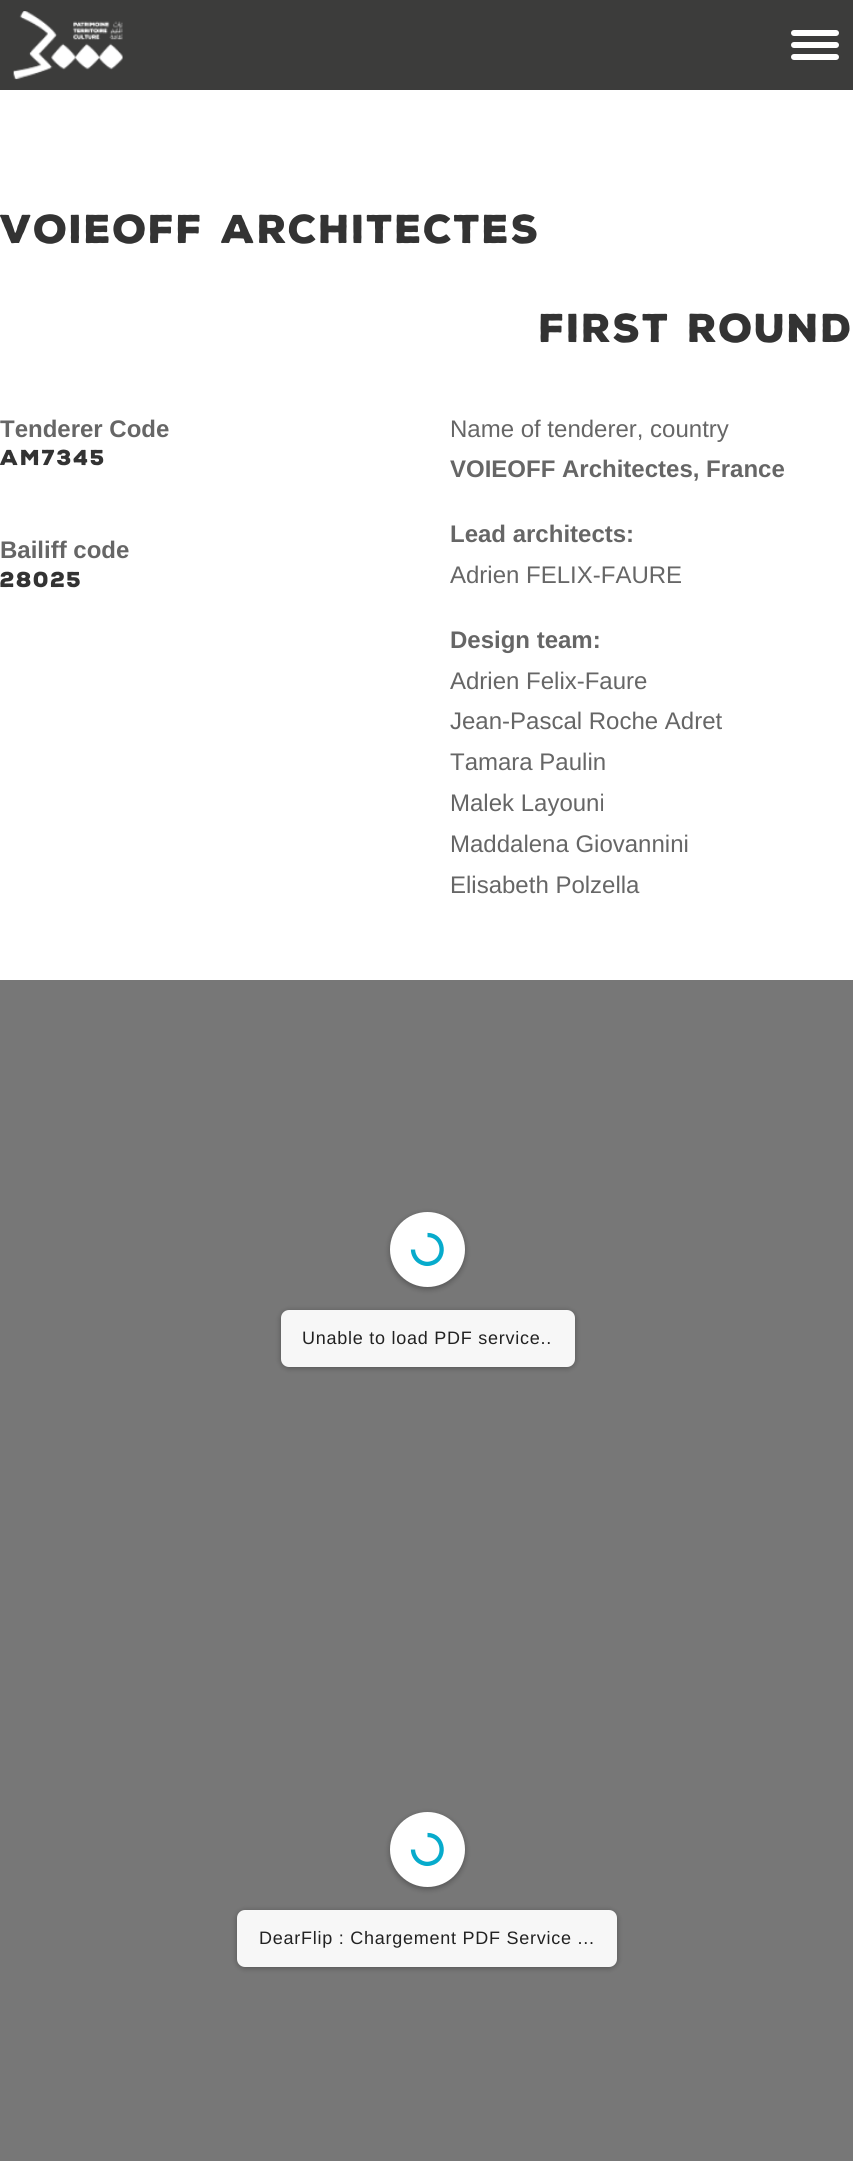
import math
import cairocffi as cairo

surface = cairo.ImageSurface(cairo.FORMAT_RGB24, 853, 2161)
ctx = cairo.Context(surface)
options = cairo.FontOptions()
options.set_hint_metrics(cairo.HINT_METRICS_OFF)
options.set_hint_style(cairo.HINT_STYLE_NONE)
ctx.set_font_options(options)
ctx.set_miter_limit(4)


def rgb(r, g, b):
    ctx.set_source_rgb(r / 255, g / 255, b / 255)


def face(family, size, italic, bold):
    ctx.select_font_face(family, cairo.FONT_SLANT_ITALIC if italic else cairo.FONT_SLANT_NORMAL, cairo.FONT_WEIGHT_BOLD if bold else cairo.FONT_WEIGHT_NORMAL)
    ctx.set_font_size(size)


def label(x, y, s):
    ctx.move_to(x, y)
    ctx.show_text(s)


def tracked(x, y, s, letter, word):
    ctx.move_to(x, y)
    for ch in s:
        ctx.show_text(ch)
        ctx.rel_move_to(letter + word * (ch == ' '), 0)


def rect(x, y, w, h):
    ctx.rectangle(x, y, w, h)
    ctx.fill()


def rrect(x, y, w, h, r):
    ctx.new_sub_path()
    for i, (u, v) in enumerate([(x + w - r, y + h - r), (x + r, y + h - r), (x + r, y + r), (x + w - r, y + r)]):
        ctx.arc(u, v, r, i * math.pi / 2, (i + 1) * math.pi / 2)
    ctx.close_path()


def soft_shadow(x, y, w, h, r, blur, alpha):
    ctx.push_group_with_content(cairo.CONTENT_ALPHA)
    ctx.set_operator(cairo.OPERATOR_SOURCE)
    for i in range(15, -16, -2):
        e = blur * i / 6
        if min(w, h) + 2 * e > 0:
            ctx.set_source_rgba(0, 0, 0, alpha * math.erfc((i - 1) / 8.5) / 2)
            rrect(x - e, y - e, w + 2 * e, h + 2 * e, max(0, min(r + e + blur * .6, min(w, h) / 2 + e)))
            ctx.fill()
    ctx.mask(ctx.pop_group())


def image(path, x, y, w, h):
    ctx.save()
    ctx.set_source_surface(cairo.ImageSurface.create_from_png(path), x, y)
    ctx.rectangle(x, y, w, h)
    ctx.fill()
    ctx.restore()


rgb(255, 255, 255)
ctx.paint()
rgb(60, 60, 59)
rect(0, 0, 853, 90)
image('image0.png', 13, 11, 110, 69)
rgb(255, 255, 255)
rrect(791, 30, 48, 6, 3)
ctx.fill()
rrect(791, 42, 48, 6, 3)
ctx.fill()
rrect(791, 54, 48, 6, 3)
ctx.fill()
face('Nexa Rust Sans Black', 39, 0, 0)
rgb(51, 51, 51)
tracked(0, 243, 'VOIEOFF ARCHITECTES', 1.5, 0)
tracked(539, 342, 'FIRST ROUND', 1.5, 0)
face('Liberation Sans', 24, 0, 1)
rgb(102, 102, 102)
label(0, 437, 'Tenderer Code')
face('Nexa Rust Sans Black', 21, 0, 0)
rgb(51, 51, 51)
tracked(0, 465, 'AM7345', 1.5, 0)
face('Liberation Sans', 24, 0, 1)
rgb(102, 102, 102)
label(0, 558, 'Bailiff code')
face('Nexa Rust Sans Black', 21, 0, 0)
rgb(51, 51, 51)
tracked(0, 587, '28025', 1.5, 0)
face('Liberation Sans', 24, 0, 0)
rgb(102, 102, 102)
label(450, 437, 'Name of tenderer, country')
face('Liberation Sans', 24, 0, 1)
label(450, 477, 'VOIEOFF Architectes, France')
label(450, 542, 'Lead architects:')
face('Liberation Sans', 24, 0, 0)
label(450, 583, 'Adrien FELIX-FAURE')
face('Liberation Sans', 24, 0, 1)
label(450, 648, 'Design team:')
face('Liberation Sans', 24, 0, 0)
label(450, 689, 'Adrien Felix-Faure')
label(450, 729, 'Jean-Pascal Roche Adret')
label(450, 770, 'Tamara Paulin')
label(450, 811, 'Malek Layouni')
label(450, 852, 'Maddalena Giovannini')
label(450, 893, 'Elisabeth Polzella')
rgb(119, 119, 119)
rect(0, 980, 853, 1181)
rgb(0, 0, 0)
soft_shadow(390, 1214, 75, 75, 37.5, 3, 0.3)
rgb(255, 255, 255)
ctx.arc(427.5, 1249.5, 37.5, 0, 2 * math.pi)
ctx.fill()
ctx.new_path()
ctx.move_to(427.5, 1235)
ctx.curve_to(444.5, 1235, 447, 1260, 430.5, 1263.5)
ctx.curve_to(426.5, 1264.5, 422.5, 1263.5, 419.5, 1261.5)
ctx.curve_to(415.5, 1259, 413, 1254, 413, 1249.5)
rgb(7, 171, 204)
ctx.set_line_width(4.3)
ctx.stroke()
rgb(0, 0, 0)
soft_shadow(281, 1311, 294, 57, 8, 3, 0.3)
rgb(247, 247, 247)
rrect(281, 1310, 294, 57, 8)
ctx.fill()
face('Liberation Sans', 18, 0, 0)
rgb(34, 34, 34)
tracked(302, 1344, 'Unable to load PDF service..', 0.75, 0)
rgb(0, 0, 0)
soft_shadow(390, 1814, 75, 75, 37.5, 3, 0.3)
rgb(255, 255, 255)
ctx.arc(427.5, 1849.5, 37.5, 0, 2 * math.pi)
ctx.fill()
ctx.new_path()
ctx.move_to(427.5, 1835)
ctx.curve_to(444.5, 1835, 447, 1860, 430.5, 1863.5)
ctx.curve_to(426.5, 1864.5, 422.5, 1863.5, 419.5, 1861.5)
ctx.curve_to(415.5, 1859, 413, 1854, 413, 1849.5)
rgb(7, 171, 204)
ctx.stroke()
rgb(0, 0, 0)
soft_shadow(237, 1911, 380, 57, 8, 3, 0.3)
rgb(247, 247, 247)
rrect(237, 1910, 380, 57, 8)
ctx.fill()
rgb(34, 34, 34)
tracked(259, 1944, 'DearFlip : Chargement PDF Service ...', 0.75, 0)
surface.write_to_png('render.png')
